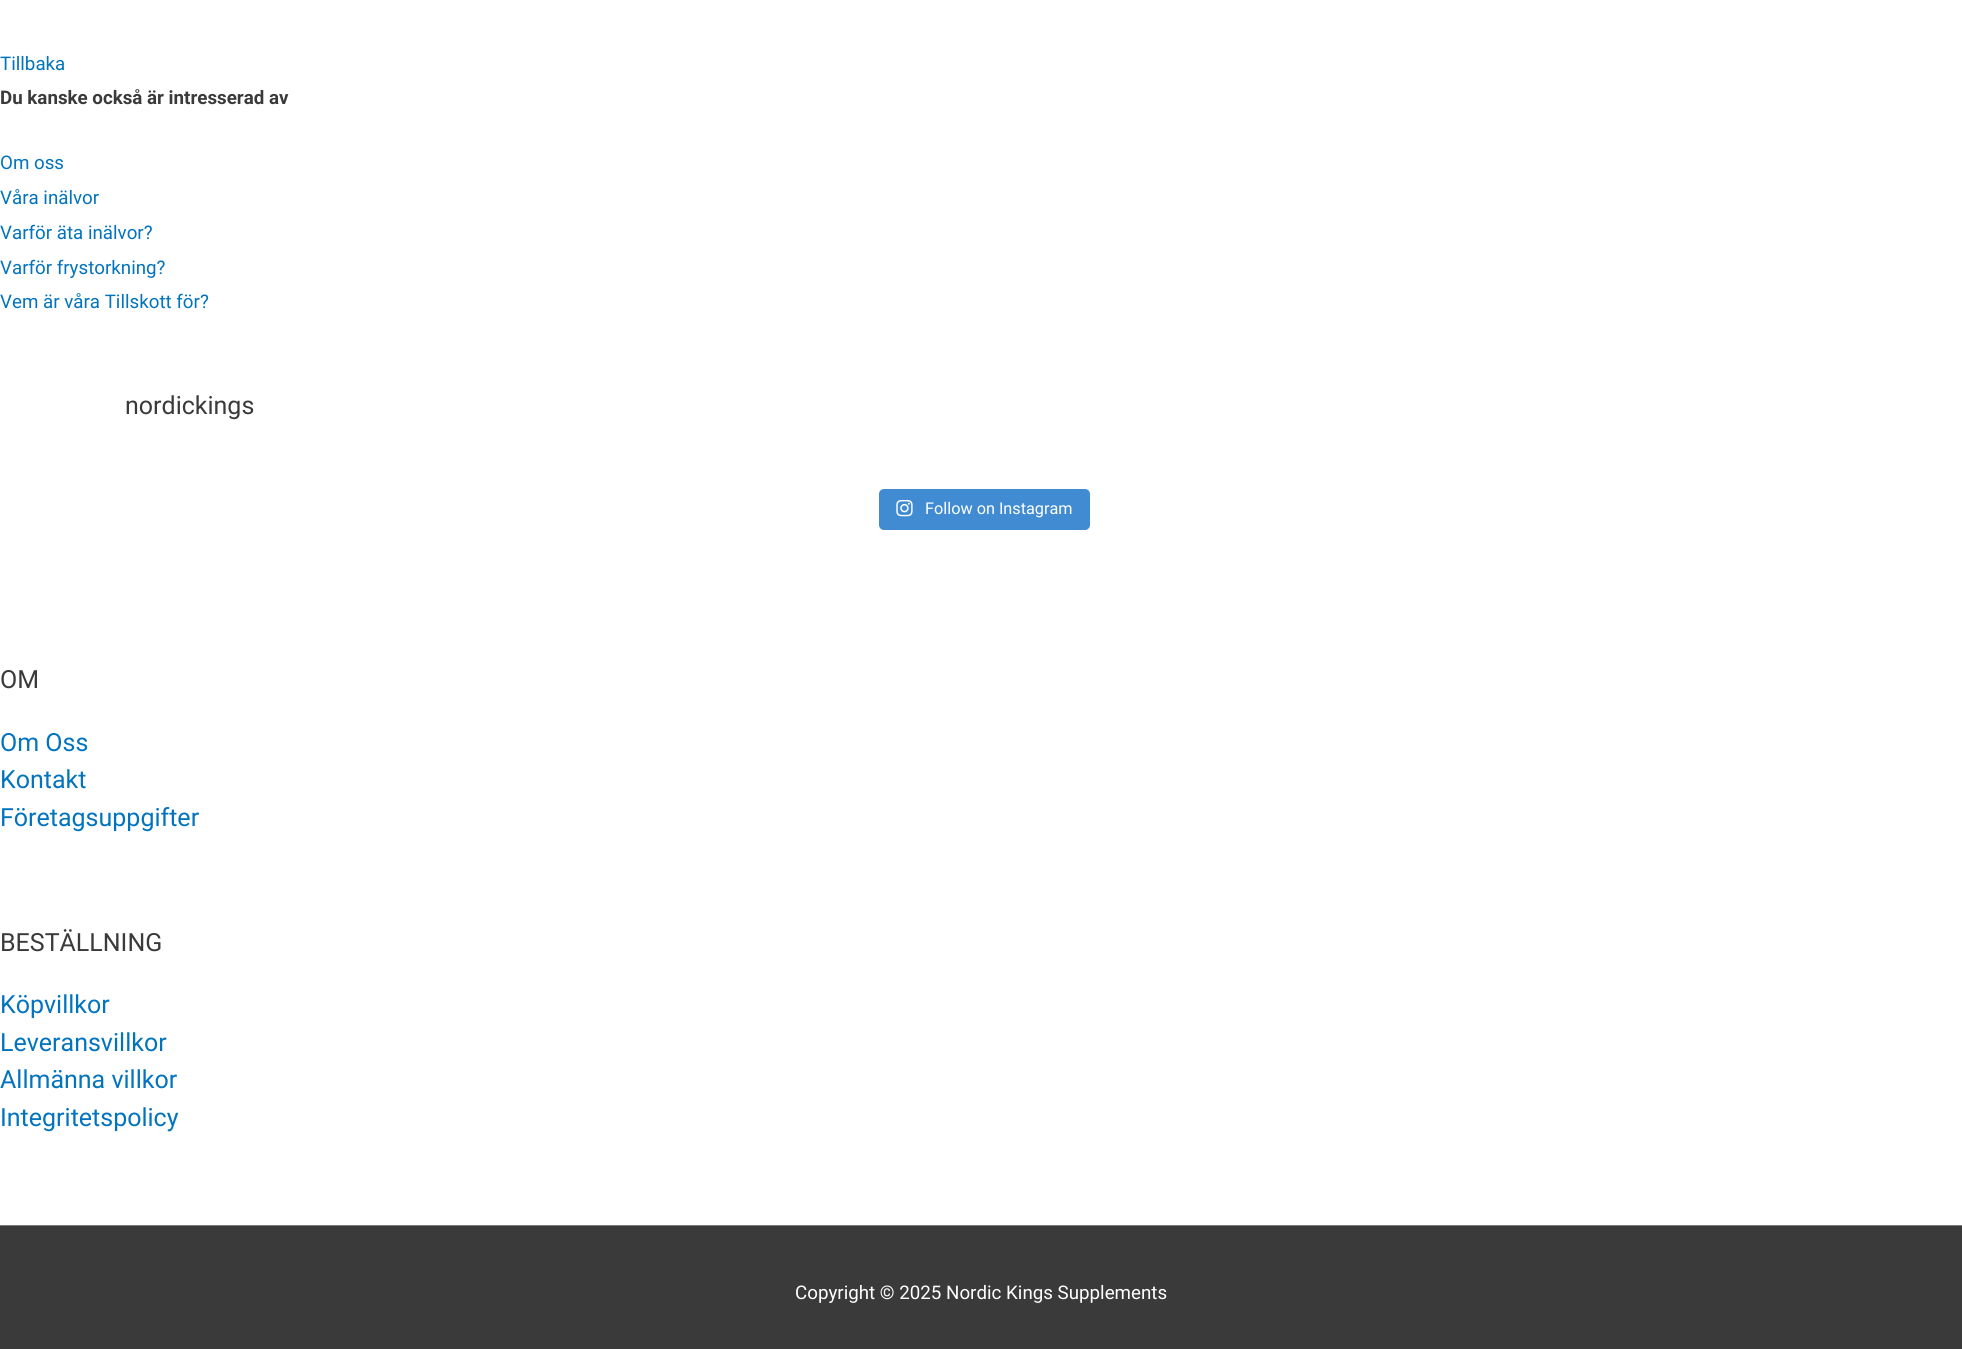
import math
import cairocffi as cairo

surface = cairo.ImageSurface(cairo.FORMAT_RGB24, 1962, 1349)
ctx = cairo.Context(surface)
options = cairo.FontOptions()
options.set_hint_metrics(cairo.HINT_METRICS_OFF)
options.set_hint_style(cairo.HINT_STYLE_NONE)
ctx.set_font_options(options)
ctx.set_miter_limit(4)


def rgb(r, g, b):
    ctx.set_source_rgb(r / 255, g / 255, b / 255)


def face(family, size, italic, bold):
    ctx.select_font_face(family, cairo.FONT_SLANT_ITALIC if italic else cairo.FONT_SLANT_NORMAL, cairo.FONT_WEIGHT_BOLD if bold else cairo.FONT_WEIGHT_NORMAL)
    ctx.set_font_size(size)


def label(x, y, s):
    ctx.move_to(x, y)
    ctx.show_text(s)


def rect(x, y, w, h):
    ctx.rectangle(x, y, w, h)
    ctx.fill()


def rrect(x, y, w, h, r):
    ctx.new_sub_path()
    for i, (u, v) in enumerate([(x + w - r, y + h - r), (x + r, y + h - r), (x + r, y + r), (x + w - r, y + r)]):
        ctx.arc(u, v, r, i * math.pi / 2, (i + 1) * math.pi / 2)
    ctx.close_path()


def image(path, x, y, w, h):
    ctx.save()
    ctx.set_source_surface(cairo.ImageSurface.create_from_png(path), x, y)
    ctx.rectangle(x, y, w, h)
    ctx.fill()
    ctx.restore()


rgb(255, 255, 255)
ctx.paint()
face('Roboto', 18.75, 0, 0)
rgb(2, 116, 190)
label(0, 70, 'Tillbaka')
face('Roboto', 18.75, 0, 1)
rgb(58, 58, 58)
label(0, 104, 'Du kanske också är intresserad av')
face('Roboto', 18.75, 0, 0)
rgb(2, 116, 190)
label(0, 169, 'Om oss')
label(0, 204, 'Våra inälvor')
label(0, 239, 'Varför äta inälvor?')
label(0, 274, 'Varför frystorkning?')
label(0, 308, 'Vem är våra Tillskott för?')
face('Roboto', 25, 0, 0)
rgb(58, 58, 58)
label(125, 414, 'nordickings')
rgb(64, 139, 209)
rrect(879, 489, 211, 41, 5)
ctx.fill()
image('image0.png', 896, 500, 17, 17)
face('Roboto', 16.25, 0, 0)
rgb(255, 255, 255)
label(925, 514, 'Follow on Instagram')
face('Roboto', 25, 0, 0)
rgb(58, 58, 58)
label(0, 688, 'OM')
rgb(2, 116, 190)
label(0, 751, 'Om Oss')
label(0, 788, 'Kontakt')
label(0, 826, 'Företagsuppgifter')
rgb(58, 58, 58)
label(0, 951, 'BESTÄLLNING')
rgb(2, 116, 190)
label(0, 1013, 'Köpvillkor')
label(0, 1051, 'Leveransvillkor')
label(0, 1088, 'Allmänna villkor')
label(0, 1126, 'Integritetspolicy')
rgb(122, 122, 122)
rect(0, 1225, 1962, 1)
rgb(58, 58, 58)
rect(0, 1226, 1962, 123)
face('Roboto', 18.75, 0, 0)
rgb(255, 255, 255)
label(795, 1299, 'Copyright © 2025 Nordic Kings Supplements')
surface.write_to_png('render.png')
